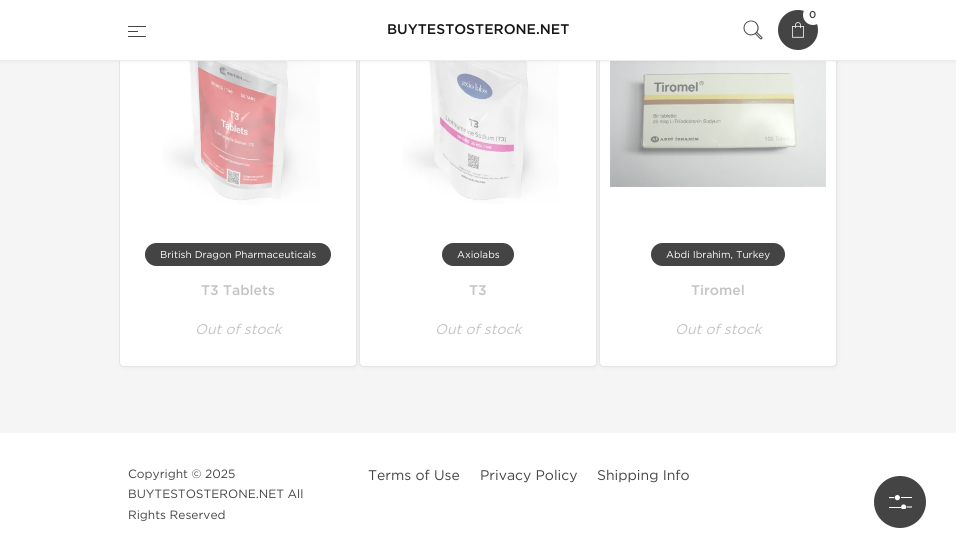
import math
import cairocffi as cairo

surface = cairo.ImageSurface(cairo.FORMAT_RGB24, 956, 558)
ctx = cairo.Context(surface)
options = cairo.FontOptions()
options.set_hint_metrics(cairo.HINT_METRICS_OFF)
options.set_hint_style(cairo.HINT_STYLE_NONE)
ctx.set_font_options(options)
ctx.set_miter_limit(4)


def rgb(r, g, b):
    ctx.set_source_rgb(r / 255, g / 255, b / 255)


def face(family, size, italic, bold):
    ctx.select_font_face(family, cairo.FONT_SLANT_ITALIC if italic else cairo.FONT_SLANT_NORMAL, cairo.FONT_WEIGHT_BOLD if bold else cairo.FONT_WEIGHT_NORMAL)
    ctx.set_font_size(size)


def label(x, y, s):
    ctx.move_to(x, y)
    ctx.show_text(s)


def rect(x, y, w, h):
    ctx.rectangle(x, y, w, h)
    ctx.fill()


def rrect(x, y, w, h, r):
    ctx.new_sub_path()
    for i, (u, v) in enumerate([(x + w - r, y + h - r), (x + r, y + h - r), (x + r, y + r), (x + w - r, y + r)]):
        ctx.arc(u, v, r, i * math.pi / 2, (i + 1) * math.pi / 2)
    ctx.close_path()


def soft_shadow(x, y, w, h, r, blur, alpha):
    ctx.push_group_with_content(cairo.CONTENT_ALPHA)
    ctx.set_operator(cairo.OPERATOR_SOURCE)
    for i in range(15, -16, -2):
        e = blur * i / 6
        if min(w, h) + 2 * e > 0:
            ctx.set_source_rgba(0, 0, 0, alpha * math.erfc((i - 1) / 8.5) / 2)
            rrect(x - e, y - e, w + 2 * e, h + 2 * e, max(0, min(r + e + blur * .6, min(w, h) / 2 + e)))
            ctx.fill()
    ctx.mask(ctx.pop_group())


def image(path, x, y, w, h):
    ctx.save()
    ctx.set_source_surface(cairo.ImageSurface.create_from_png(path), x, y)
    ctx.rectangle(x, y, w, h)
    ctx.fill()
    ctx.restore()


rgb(245, 245, 245)
ctx.paint()
rgb(68, 68, 68)
soft_shadow(120, -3, 238, 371, 5, 2.5, 0.06)
rgb(255, 255, 255)
rrect(119.5, -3.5, 237, 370, 4.5)
ctx.fill_preserve()
rgb(229, 229, 229)
ctx.set_line_width(1)
ctx.stroke()
image('image3.png', 163, 61, 157, 144)
rgb(68, 68, 68)
soft_shadow(360, -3, 238, 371, 5, 2.5, 0.06)
rgb(255, 255, 255)
rrect(359.5, -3.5, 237, 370, 4.5)
ctx.fill_preserve()
rgb(229, 229, 229)
ctx.stroke()
image('image4.png', 403, 61, 156, 143)
rgb(68, 68, 68)
soft_shadow(600, -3, 238, 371, 5, 2.5, 0.06)
rgb(255, 255, 255)
rrect(599.5, -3.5, 237, 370, 4.5)
ctx.fill_preserve()
rgb(229, 229, 229)
ctx.stroke()
image('image5.png', 610, 61, 216, 127)
rgb(68, 68, 68)
soft_shadow(1, 1, 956, 61, 0, 1.5, 0.06)
rgb(255, 255, 255)
rect(0, 0, 956, 60)
rgb(236, 236, 236)
rect(0, 60, 840, 1)
rgb(68, 68, 68)
ctx.arc(798, 30, 20, 0, 2 * math.pi)
ctx.fill()
image('image0.png', 792, 22, 12, 16)
rgb(255, 255, 255)
ctx.arc(813, 15, 10, 0, 2 * math.pi)
ctx.fill()
face('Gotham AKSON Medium', 10, 0, 0)
rgb(68, 68, 68)
label(809, 18, '0')
image('image1.png', 743, 20, 20, 20)
image('image2.png', 128, 26, 18, 11)
face('Gotham AKSON Medium', 14, 0, 0)
rgb(22, 22, 22)
label(387, 34, 'BUYTESTOSTERONE.NET')
rgb(68, 68, 68)
rrect(140, 238, 196, 33, 16.5)
ctx.fill_preserve()
rgb(255, 255, 255)
ctx.set_line_width(10)
ctx.stroke()
face('Gotham AKSON', 10, 0, 0)
label(160, 258, 'British Dragon Pharmaceuticals')
face('Gotham AKSON Medium', 14, 0, 0)
rgb(196, 196, 196)
label(201, 295, 'T3 Tablets')
face('Gotham AKSON', 14, 1, 0)
label(195, 334, 'Out of stock')
rgb(68, 68, 68)
rrect(437, 238, 82, 33, 16.5)
ctx.fill_preserve()
rgb(255, 255, 255)
ctx.stroke()
face('Gotham AKSON', 10, 0, 0)
label(457, 258, 'Axiolabs')
face('Gotham AKSON Medium', 14, 0, 0)
rgb(196, 196, 196)
label(469, 295, 'T3')
face('Gotham AKSON', 14, 1, 0)
label(435, 334, 'Out of stock')
rgb(68, 68, 68)
rrect(646, 238, 144, 33, 16.5)
ctx.fill_preserve()
rgb(255, 255, 255)
ctx.stroke()
face('Gotham AKSON', 10, 0, 0)
label(666, 258, 'Abdi Ibrahim, Turkey')
face('Gotham AKSON Medium', 14, 0, 0)
rgb(196, 196, 196)
label(691, 295, 'Tiromel')
face('Gotham AKSON', 14, 1, 0)
label(675, 334, 'Out of stock')
rgb(255, 255, 255)
rect(0, 433, 956, 125)
rgb(68, 68, 68)
ctx.new_path()
ctx.arc(900, 502, 26, 0, 2 * math.pi)
ctx.fill()
image('image6.png', 889, 495, 23, 14)
face('Gotham AKSON', 12, 0, 0)
label(128, 478, 'Copyright © 2025')
label(128, 498, 'BUYTESTOSTERONE.NET All')
label(128, 519, 'Rights Reserved')
face('Gotham AKSON', 14, 0, 0)
label(368, 480, 'Terms of Use')
label(480, 480, 'Privacy Policy')
label(597, 480, 'Shipping Info')
surface.write_to_png('render.png')
